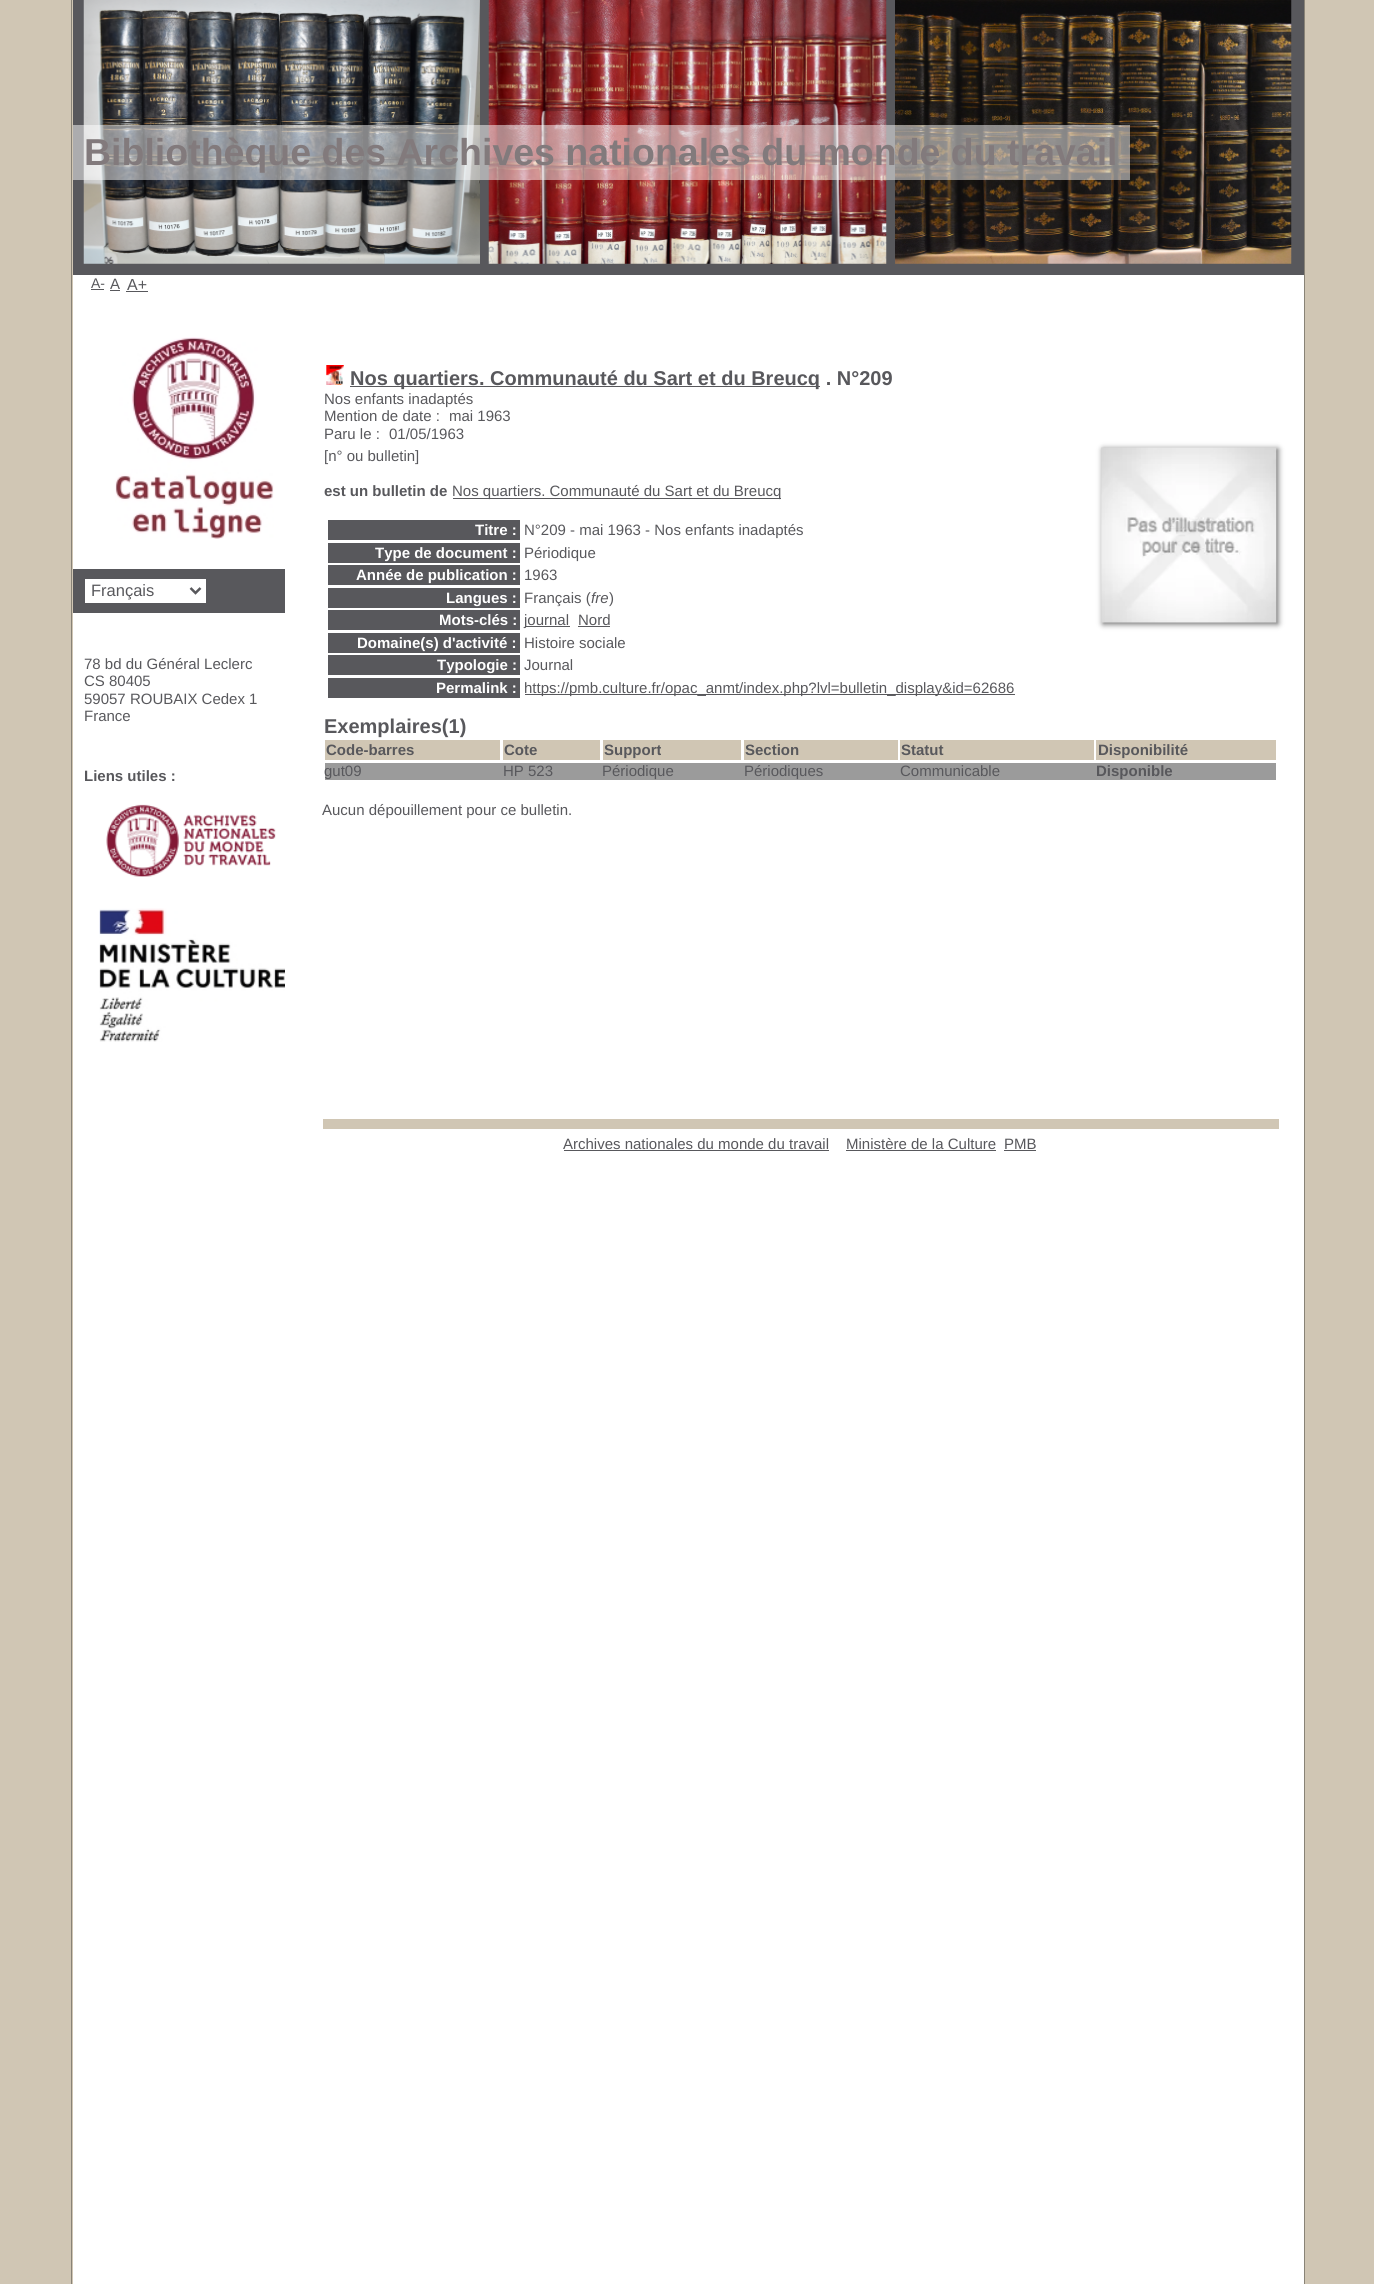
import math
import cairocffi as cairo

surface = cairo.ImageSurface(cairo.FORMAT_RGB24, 1374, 2284)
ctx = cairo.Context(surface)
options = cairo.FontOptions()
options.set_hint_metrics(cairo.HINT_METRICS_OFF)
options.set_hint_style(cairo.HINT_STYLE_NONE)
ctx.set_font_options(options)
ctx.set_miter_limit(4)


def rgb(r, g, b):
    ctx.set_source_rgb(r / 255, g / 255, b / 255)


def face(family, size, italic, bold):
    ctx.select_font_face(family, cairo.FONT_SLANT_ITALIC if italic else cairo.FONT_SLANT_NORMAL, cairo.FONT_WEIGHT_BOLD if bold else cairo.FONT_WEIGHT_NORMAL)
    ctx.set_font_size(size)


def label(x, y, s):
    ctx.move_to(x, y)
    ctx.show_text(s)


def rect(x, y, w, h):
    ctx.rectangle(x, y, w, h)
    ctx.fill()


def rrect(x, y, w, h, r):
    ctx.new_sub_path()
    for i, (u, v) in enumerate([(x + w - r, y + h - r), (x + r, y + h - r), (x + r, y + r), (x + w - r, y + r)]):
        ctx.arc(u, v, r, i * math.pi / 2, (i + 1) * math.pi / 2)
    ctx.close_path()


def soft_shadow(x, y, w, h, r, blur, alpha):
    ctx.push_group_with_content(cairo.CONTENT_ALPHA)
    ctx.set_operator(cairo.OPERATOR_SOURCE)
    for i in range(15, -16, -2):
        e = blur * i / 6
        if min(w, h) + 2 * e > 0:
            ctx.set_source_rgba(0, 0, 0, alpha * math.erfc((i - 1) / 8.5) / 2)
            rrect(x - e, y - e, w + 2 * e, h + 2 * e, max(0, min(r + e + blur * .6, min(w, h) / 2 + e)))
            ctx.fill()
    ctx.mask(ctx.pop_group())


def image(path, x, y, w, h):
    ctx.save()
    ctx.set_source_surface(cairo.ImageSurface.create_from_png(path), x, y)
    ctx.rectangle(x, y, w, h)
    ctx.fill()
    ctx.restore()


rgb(208, 198, 180)
ctx.paint()
ctx.rectangle(71.5, -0.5, 1233, 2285)
rgb(137, 131, 119)
ctx.set_line_width(1)
ctx.stroke()
rgb(255, 255, 255)
rect(73, 275, 1231, 2009)
rgb(88, 88, 92)
rect(73, 0, 1231, 275)
image('image0.png', 83, 0, 397, 264)
image('image1.png', 488, 0, 399, 264)
image('image2.png', 895, 0, 397, 264)
ctx.set_source_rgba(1, 1, 1, 0.5)
rect(73, 125, 1057, 55)
face('Liberation Sans', 37.5, 0, 1)
rgb(130, 122, 124)
label(84, 165, 'Bibliothèque des Archives nationales du monde du travail')
image('image3.png', 326, 365, 18, 20)
rgb(88, 88, 92)
rect(350, 386, 470, 1)
face('Liberation Sans', 20, 0, 1)
label(350, 385, 'Nos quartiers. Communauté du Sart et du Breucq . N°209')
face('Liberation Sans', 15, 0, 0)
label(324, 404, 'Nos enfants inadaptés')
label(324, 421, 'Mention de date :')
label(449, 421, 'mai 1963')
label(324, 439, 'Paru le :')
label(389, 439, '01/05/1963')
label(324, 461, '[n° ou bulletin]')
face('Liberation Sans', 15, 0, 1)
label(324, 496, 'est un bulletin de')
rect(453, 498, 328, 1)
face('Liberation Sans', 15, 0, 0)
label(452, 496, 'Nos quartiers. Communauté du Sart et du Breucq')
rect(328, 520, 192, 20)
face('Liberation Sans', 15, 0, 1)
rgb(255, 255, 255)
label(475, 535, 'Titre :')
face('Liberation Sans', 15, 0, 0)
rgb(88, 88, 92)
label(524, 535, 'N°209 - mai 1963 - Nos enfants inadaptés')
rect(328, 543, 192, 20)
face('Liberation Sans', 15, 0, 1)
rgb(255, 255, 255)
label(375, 558, 'Type de document :')
face('Liberation Sans', 15, 0, 0)
rgb(88, 88, 92)
label(524, 558, 'Périodique')
rect(328, 565, 192, 20)
face('Liberation Sans', 15, 0, 1)
rgb(255, 255, 255)
label(356, 580, 'Année de publication :')
face('Liberation Sans', 15, 0, 0)
rgb(88, 88, 92)
label(524, 580, '1963')
rect(328, 588, 192, 20)
face('Liberation Sans', 15, 0, 1)
rgb(255, 255, 255)
label(446, 603, 'Langues :')
face('Liberation Sans', 15, 0, 0)
rgb(88, 88, 92)
label(524, 603, 'Français (')
face('Liberation Sans', 15, 1, 0)
label(591, 603, 'fre')
face('Liberation Sans', 15, 0, 0)
label(609, 603, ')')
rect(328, 610, 192, 20)
face('Liberation Sans', 15, 0, 1)
rgb(255, 255, 255)
label(439, 625, 'Mots-clés :')
rgb(88, 88, 92)
rect(525, 626, 45, 1)
face('Liberation Sans', 15, 0, 0)
label(524, 625, 'journal')
label(578, 625, 'Nord')
rect(578, 626, 32, 1)
rect(328, 633, 192, 20)
face('Liberation Sans', 15, 0, 1)
rgb(255, 255, 255)
label(357, 648, 'Domaine(s) d\'activité :')
face('Liberation Sans', 15, 0, 0)
rgb(88, 88, 92)
label(524, 648, 'Histoire sociale')
rect(328, 655, 192, 20)
face('Liberation Sans', 15, 0, 1)
rgb(255, 255, 255)
label(437, 670, 'Typologie :')
face('Liberation Sans', 15, 0, 0)
rgb(88, 88, 92)
label(524, 670, 'Journal')
rect(328, 678, 192, 20)
face('Liberation Sans', 15, 0, 1)
rgb(255, 255, 255)
label(436, 693, 'Permalink :')
rgb(88, 88, 92)
rect(525, 694, 490, 1)
face('Liberation Sans', 15, 0, 0)
label(524, 693, 'https://pmb.culture.fr/opac_anmt/index.php?lvl=bulletin_display&id=62686')
rgb(102, 102, 102)
soft_shadow(1103, 449, 175, 175, 0, 3, 1)
image('image4.png', 1101, 447, 176, 176)
face('Liberation Sans', 20, 0, 1)
rgb(88, 88, 92)
label(324, 733, 'Exemplaires(1)')
rgb(208, 198, 180)
rect(325, 740, 175, 20)
face('Liberation Sans', 15, 0, 1)
rgb(88, 88, 92)
label(326, 755, 'Code-barres')
rgb(208, 198, 180)
rect(503, 740, 97, 20)
rgb(88, 88, 92)
label(504, 755, 'Cote')
rgb(208, 198, 180)
rect(603, 740, 138, 20)
rgb(88, 88, 92)
label(604, 755, 'Support')
rgb(208, 198, 180)
rect(744, 740, 154, 20)
rgb(88, 88, 92)
label(745, 755, 'Section')
rgb(208, 198, 180)
rect(900, 740, 194, 20)
rgb(88, 88, 92)
label(901, 755, 'Statut')
rgb(208, 198, 180)
rect(1096, 740, 180, 20)
rgb(88, 88, 92)
label(1098, 755, 'Disponibilité')
rgb(155, 155, 155)
rect(325, 763, 951, 17)
face('Liberation Sans', 15, 0, 0)
rgb(88, 88, 92)
label(324, 776, 'gut09')
label(503, 776, 'HP 523')
label(602, 776, 'Périodique')
label(744, 776, 'Périodiques')
label(900, 776, 'Communicable')
face('Liberation Sans', 15, 0, 1)
label(1096, 776, 'Disponible')
face('Liberation Sans', 15, 0, 0)
label(322, 815, 'Aucun dépouillement pour ce bulletin.')
rgb(208, 198, 180)
rect(323, 1119, 956, 10)
rgb(88, 88, 92)
label(563, 1149, 'Archives nationales du monde du travail')
rect(564, 1150, 265, 1)
label(846, 1149, 'Ministère de la Culture')
rect(846, 1150, 150, 1)
label(1004, 1149, 'PMB')
rect(1004, 1150, 32, 1)
face('Liberation Sans', 14, 0, 0)
label(91, 288, 'A-')
rect(91, 289, 13, 1)
face('Liberation Sans', 15, 0, 0)
label(110, 289, 'A')
rect(110, 290, 10, 1)
face('Liberation Sans', 16, 0, 0)
label(127, 290, 'A+')
rect(126, 291, 22, 1)
image('image5.png', 115, 337, 159, 202)
rect(73, 569, 212, 44)
rgb(255, 255, 255)
rect(85, 579, 121, 24)
ctx.new_path()
ctx.move_to(190.5, 588)
ctx.line_to(195.5, 593)
ctx.line_to(200.5, 588)
rgb(88, 88, 92)
ctx.set_line_width(2.5)
ctx.stroke()
face('Liberation Sans', 16.5, 0, 0)
label(91, 596, 'Français')
face('Liberation Sans', 15, 0, 0)
label(84, 669, '78 bd du Général Leclerc')
label(84, 686, 'CS 80405')
label(84, 704, '59057 ROUBAIX Cedex 1')
label(84, 721, 'France')
face('Liberation Sans', 15, 0, 1)
label(84, 781, 'Liens utiles :')
image('image6.png', 106, 804, 170, 73)
image('image7.png', 99, 908, 186, 134)
surface.write_to_png('render.png')
